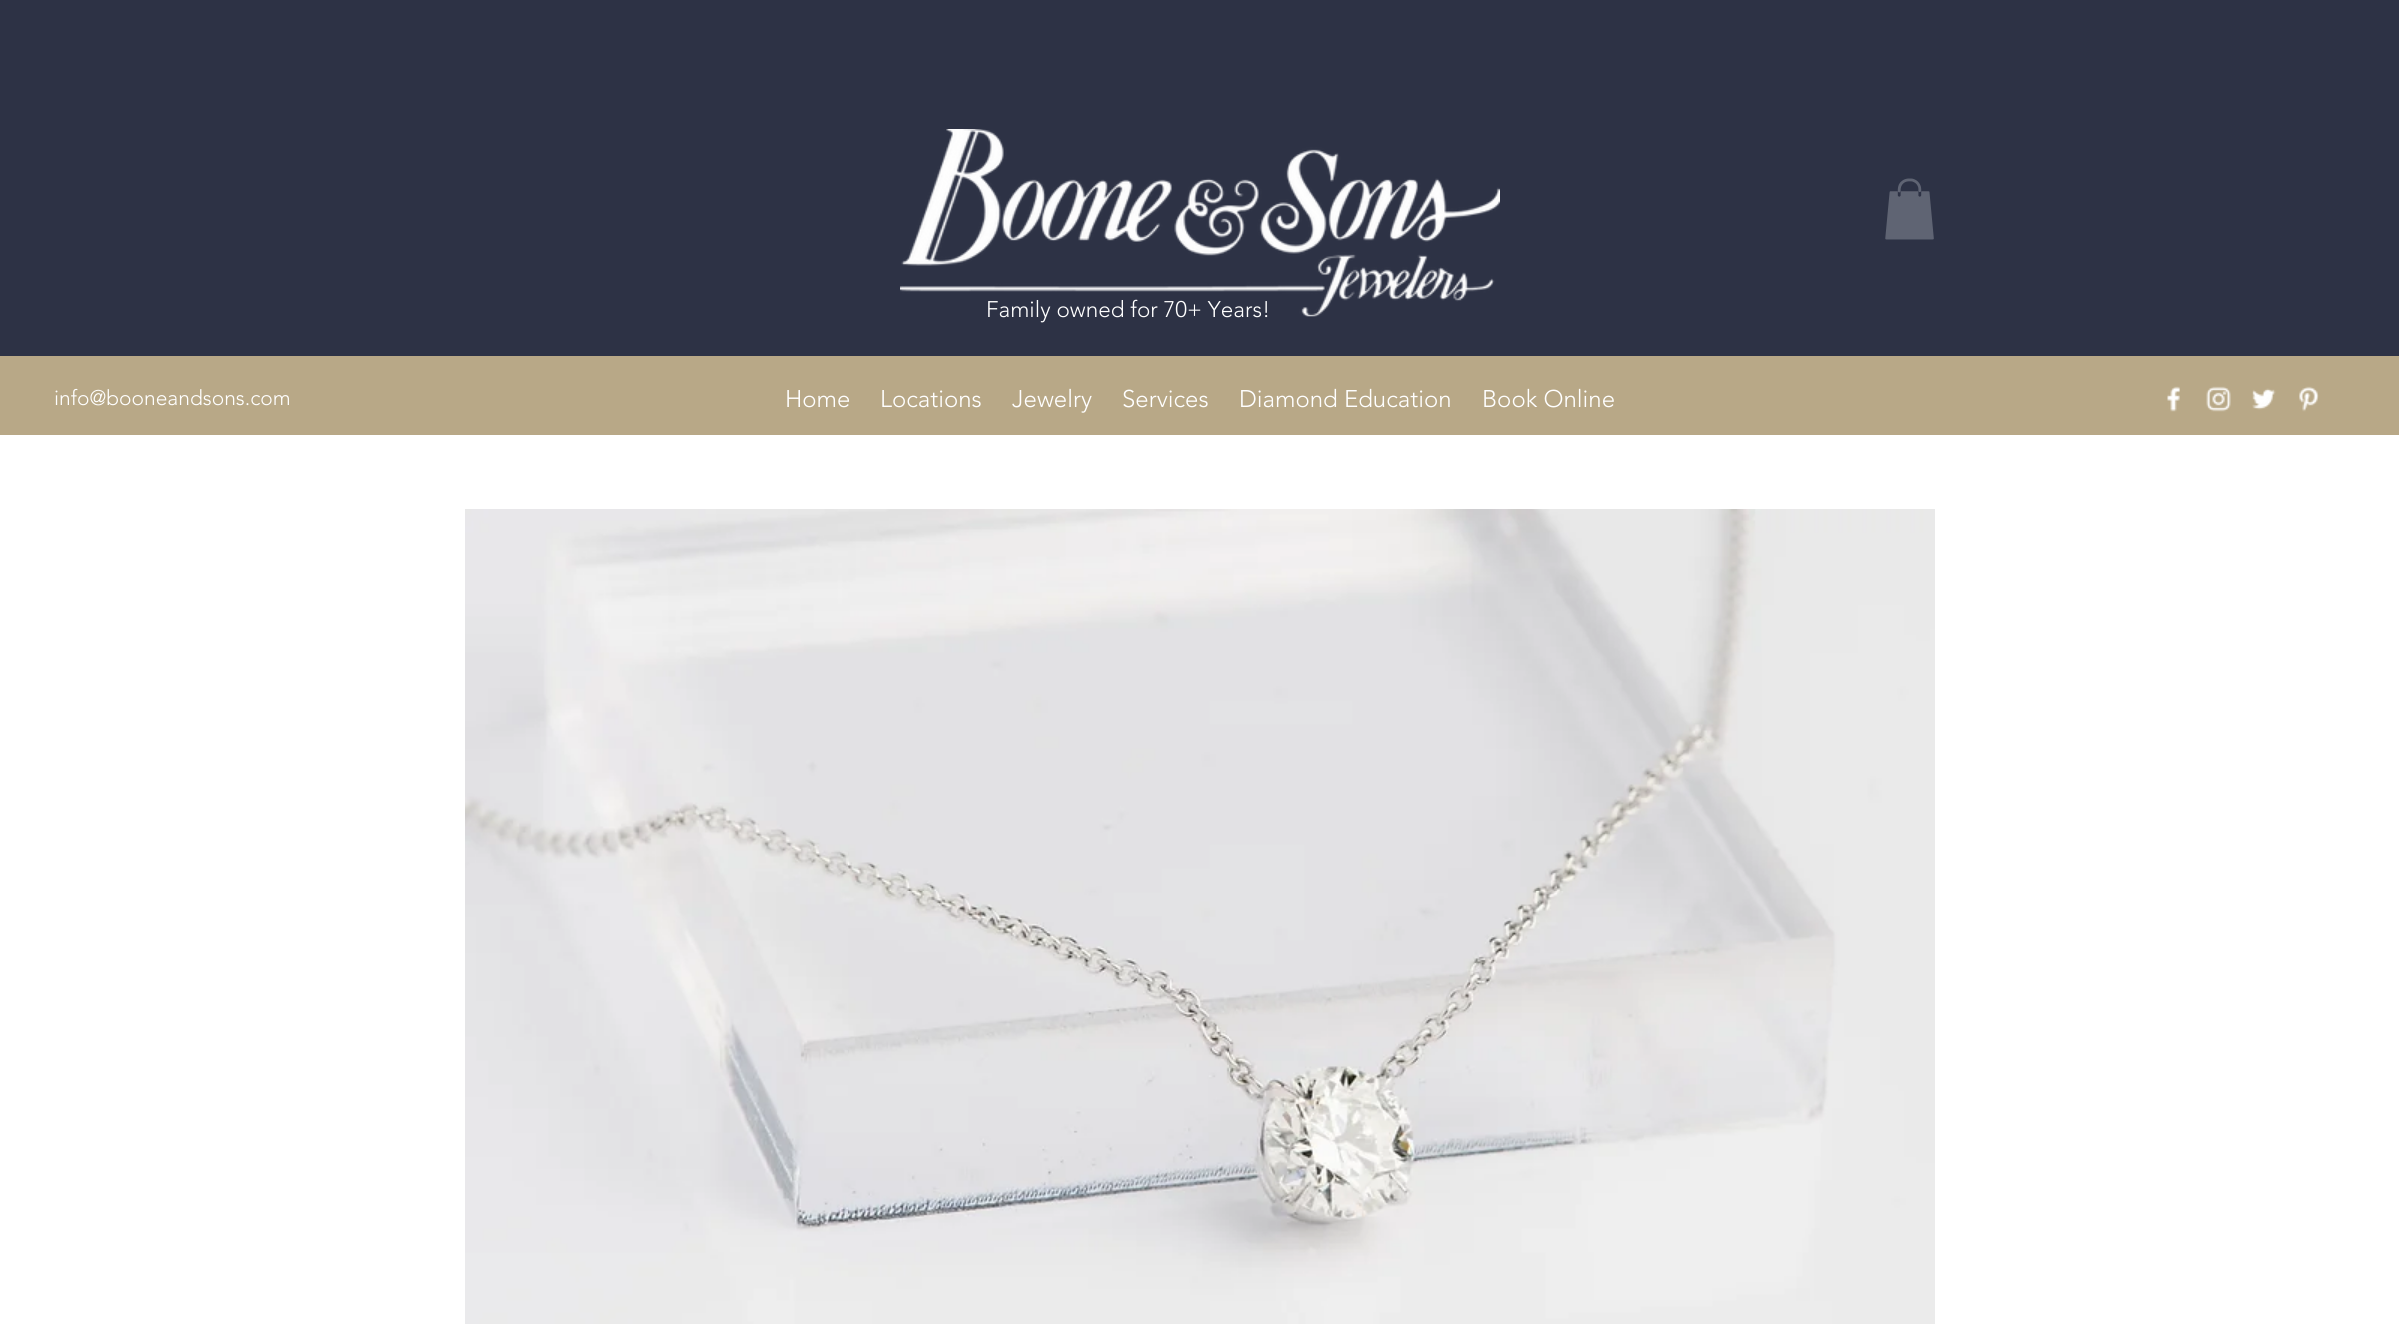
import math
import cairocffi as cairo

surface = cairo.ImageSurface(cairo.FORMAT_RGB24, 2399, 1324)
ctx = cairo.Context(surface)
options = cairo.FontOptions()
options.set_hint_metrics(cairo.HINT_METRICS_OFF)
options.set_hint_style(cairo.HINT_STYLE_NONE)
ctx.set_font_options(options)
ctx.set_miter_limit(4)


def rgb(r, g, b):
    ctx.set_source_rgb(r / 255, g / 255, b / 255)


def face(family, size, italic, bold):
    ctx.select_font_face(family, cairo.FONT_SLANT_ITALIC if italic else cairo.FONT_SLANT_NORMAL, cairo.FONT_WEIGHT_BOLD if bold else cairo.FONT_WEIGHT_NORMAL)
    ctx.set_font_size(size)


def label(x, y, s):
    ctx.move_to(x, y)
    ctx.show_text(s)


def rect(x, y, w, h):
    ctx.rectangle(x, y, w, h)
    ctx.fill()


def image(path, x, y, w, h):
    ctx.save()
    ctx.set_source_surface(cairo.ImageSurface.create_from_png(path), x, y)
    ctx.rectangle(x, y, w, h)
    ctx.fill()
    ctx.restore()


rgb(255, 255, 255)
ctx.paint()
rgb(45, 50, 69)
rect(0, 0, 2399, 356)
image('image0.png', 1885, 178, 49, 62)
image('image1.png', 900, 129, 600, 188)
face('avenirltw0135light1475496 Light', 22.5, 0, 0)
rgb(255, 255, 255)
label(986, 317, 'Family owned for 70+ Years!')
rgb(184, 168, 135)
rect(0, 356, 2399, 79)
face('avenirltw0135light1475496 Light', 21, 0, 0)
rgb(255, 255, 255)
label(54, 405, 'info@booneandsons.com')
face('avenirltw0135light1475496 Light', 24, 0, 0)
label(785, 407, 'Home')
label(880, 407, 'Locations')
label(1012, 407, 'Jewelry')
label(1122, 407, 'Services')
label(1239, 407, 'Diamond Education')
label(1482, 407, 'Book Online')
image('image2.png', 2167, 386, 13, 26)
image('image3.png', 2206, 386, 25, 26)
image('image4.png', 2252, 388, 24, 22)
image('image5.png', 2299, 386, 20, 26)
image('image6.png', 465, 509, 1470, 815)
surface.write_to_png('render.png')
